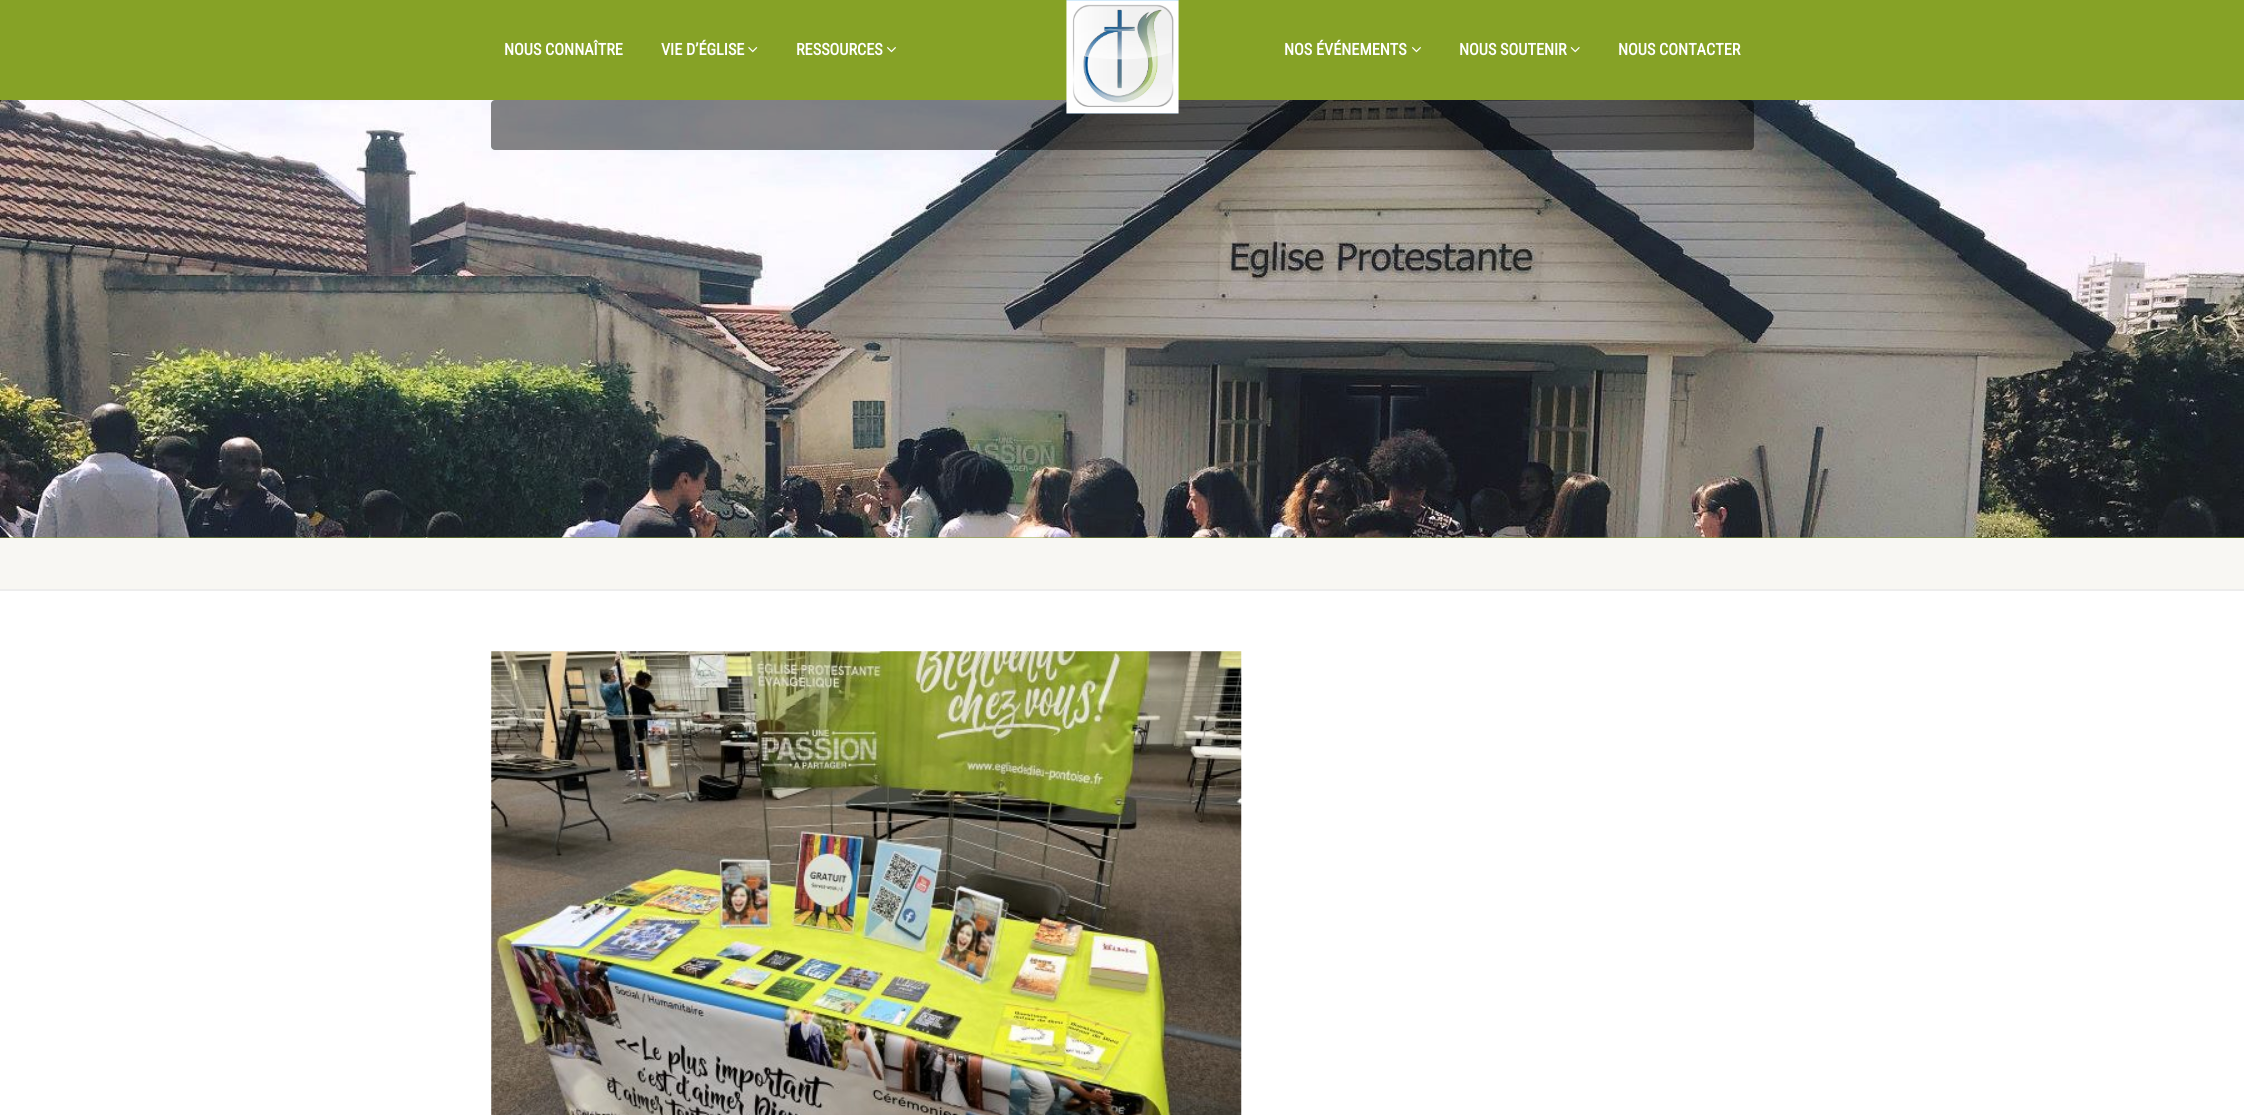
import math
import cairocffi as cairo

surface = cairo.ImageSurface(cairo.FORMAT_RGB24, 2244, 1115)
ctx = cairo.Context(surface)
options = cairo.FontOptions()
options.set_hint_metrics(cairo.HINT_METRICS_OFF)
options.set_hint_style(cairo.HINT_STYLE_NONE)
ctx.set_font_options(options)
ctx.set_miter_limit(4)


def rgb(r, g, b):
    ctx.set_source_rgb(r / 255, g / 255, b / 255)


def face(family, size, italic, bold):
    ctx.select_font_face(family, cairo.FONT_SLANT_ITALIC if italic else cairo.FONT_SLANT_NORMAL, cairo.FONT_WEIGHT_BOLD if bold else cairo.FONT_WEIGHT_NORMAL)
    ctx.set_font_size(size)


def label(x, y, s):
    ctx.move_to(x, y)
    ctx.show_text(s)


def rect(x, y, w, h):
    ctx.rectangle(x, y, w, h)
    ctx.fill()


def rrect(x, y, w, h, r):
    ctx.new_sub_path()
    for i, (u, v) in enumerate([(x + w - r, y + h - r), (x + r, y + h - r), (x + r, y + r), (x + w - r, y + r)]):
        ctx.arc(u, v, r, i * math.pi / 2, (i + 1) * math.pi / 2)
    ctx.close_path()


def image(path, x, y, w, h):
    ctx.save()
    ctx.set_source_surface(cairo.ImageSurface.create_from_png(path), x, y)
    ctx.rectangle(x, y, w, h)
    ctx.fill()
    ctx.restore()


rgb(255, 255, 255)
ctx.paint()
rgb(134, 162, 38)
rect(0, 0, 2244, 100)
rect(0, 537, 2244, 1)
image('image4.png', 0, 100, 2244, 438)
ctx.set_source_rgba(0, 0, 0, 0.48)
rrect(491, 100, 1263, 50, 4)
ctx.fill()
image('image0.png', 1066, 0, 113, 114)
face('Roboto Condensed', 16.25, 0, 1)
rgb(255, 255, 255)
label(504, 55, 'NOUS CONNAÎTRE')
label(661, 55, 'VIE D’ÉGLISE')
image('image1.png', 748, 47, 10, 6)
label(796, 55, 'RESSOURCES')
image('image2.png', 887, 47, 9, 6)
label(1284, 55, 'NOS ÉVÉNEMENTS')
image('image2.png', 1412, 47, 9, 6)
label(1459, 55, 'NOUS SOUTENIR')
image('image3.png', 1570, 47, 10, 6)
label(1618, 55, 'NOUS CONTACTER')
rgb(237, 237, 237)
rect(0, 589, 2244, 2)
rgb(248, 247, 243)
rect(0, 538, 2244, 51)
image('image5.png', 491, 651, 751, 464)
surface.write_to_png('render.png')
